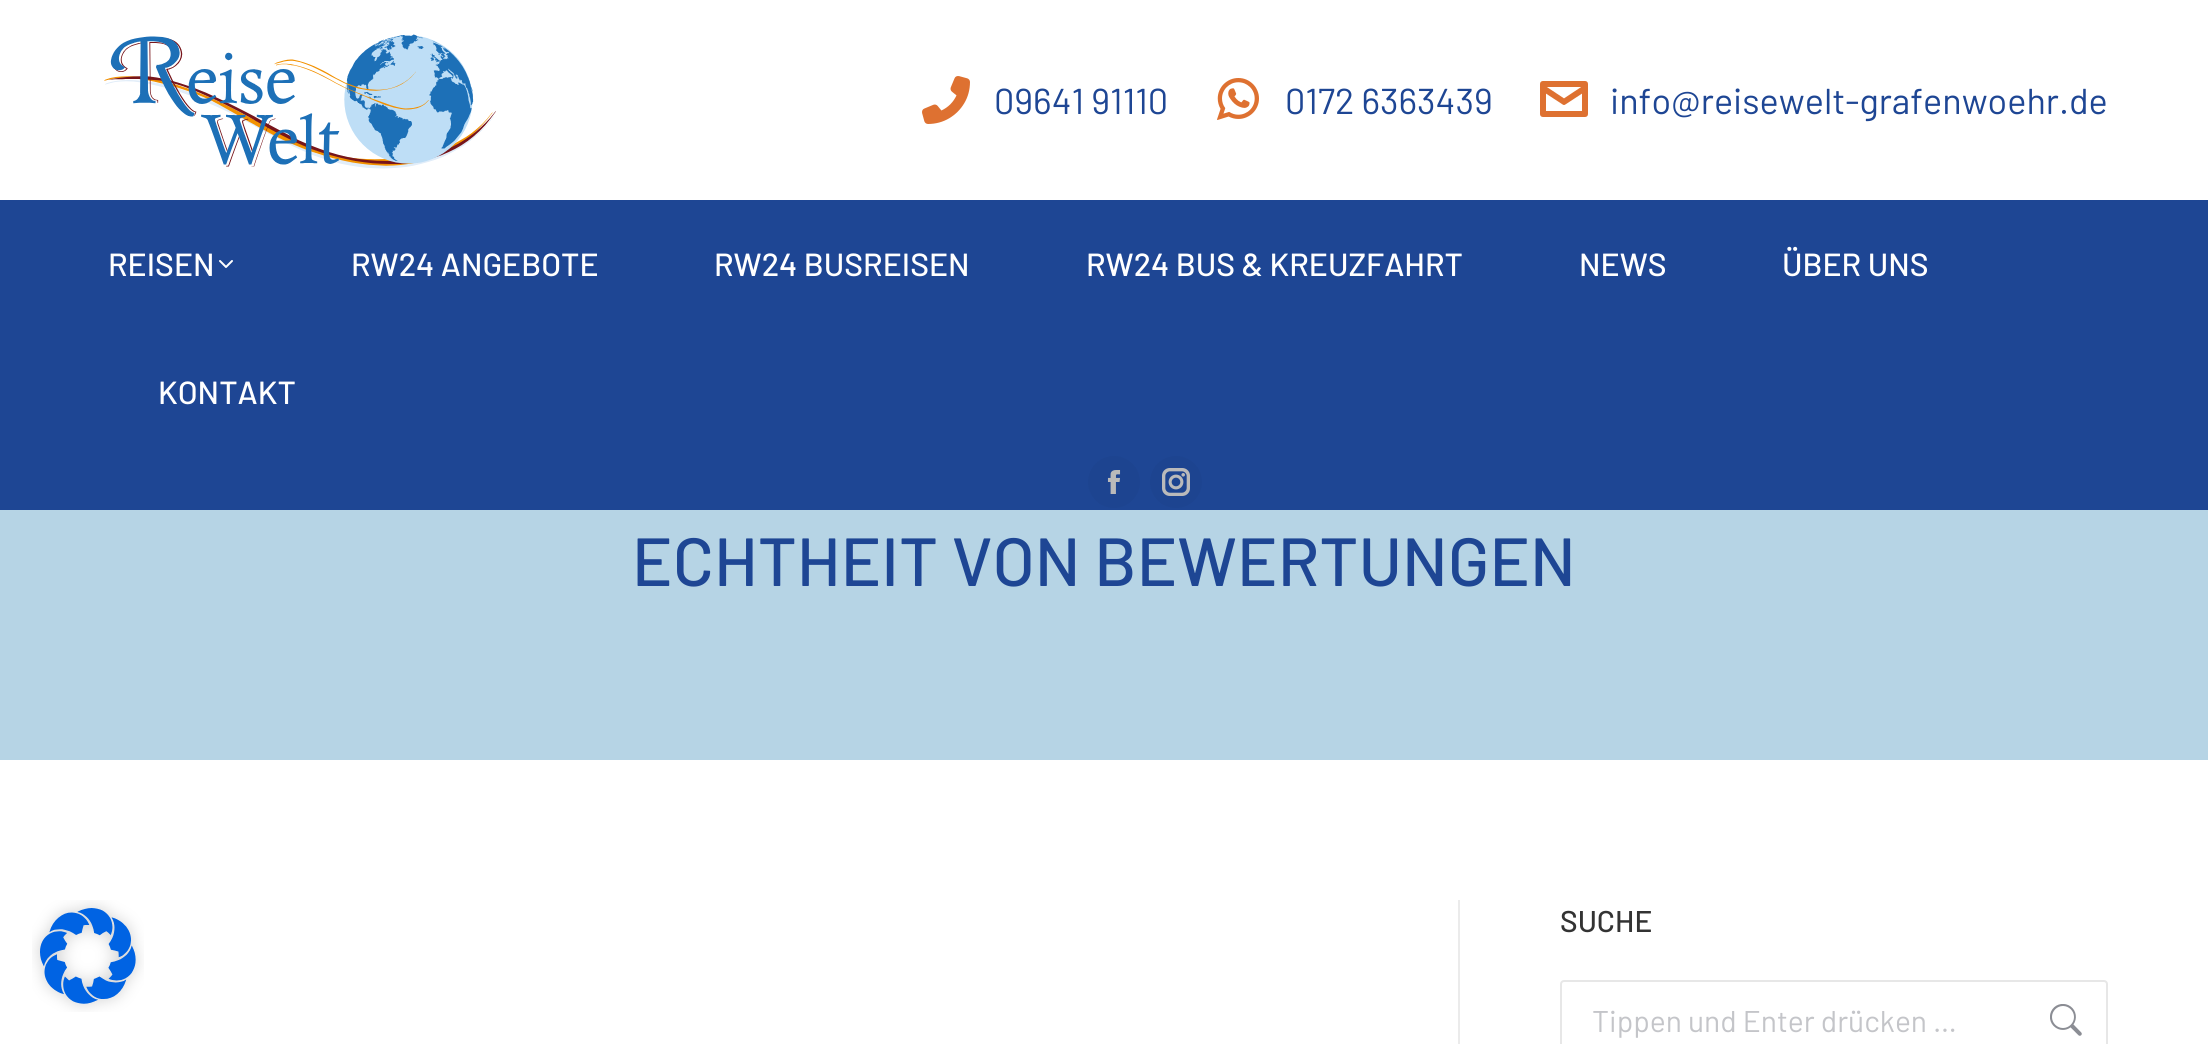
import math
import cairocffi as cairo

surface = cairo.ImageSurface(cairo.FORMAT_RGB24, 2208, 1044)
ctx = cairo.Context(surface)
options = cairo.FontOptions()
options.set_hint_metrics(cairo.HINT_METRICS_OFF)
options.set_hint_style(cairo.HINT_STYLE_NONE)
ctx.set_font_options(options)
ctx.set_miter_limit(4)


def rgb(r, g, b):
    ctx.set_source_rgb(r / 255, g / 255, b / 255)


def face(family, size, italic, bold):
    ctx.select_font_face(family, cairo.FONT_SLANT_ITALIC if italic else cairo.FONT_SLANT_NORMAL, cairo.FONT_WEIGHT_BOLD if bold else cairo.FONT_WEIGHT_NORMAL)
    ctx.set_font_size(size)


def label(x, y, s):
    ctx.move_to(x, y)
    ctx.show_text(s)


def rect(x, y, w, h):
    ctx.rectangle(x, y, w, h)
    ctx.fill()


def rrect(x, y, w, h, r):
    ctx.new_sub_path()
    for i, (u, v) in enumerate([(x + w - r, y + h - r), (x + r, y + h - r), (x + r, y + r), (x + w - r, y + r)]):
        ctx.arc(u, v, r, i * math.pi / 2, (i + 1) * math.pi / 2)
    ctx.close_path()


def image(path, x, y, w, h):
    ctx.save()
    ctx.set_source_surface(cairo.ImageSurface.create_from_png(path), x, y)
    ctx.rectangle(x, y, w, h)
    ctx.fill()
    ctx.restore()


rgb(255, 255, 255)
ctx.paint()
image('image0.png', 32, 900, 112, 112)
image('image1.png', 104, 34, 392, 135)
image('image2.png', 922, 76, 48, 48)
face('Barlow', 36, 0, 0)
rgb(30, 70, 148)
label(994, 114, '09641 91110')
image('image3.png', 1217, 78, 42, 42)
label(1285, 114, '0172 6363439')
image('image4.png', 1540, 81, 48, 36)
label(1610, 114, 'info@reisewelt-grafenwoehr.de')
rect(0, 200, 2208, 310)
face('Barlow Medium', 32, 0, 0)
rgb(255, 255, 255)
label(108, 276, 'REISEN')
image('image5.png', 219, 260, 14, 8)
label(351, 276, 'RW24 ANGEBOTE')
label(714, 276, 'RW24 BUSREISEN')
label(1086, 276, 'RW24 BUS & KREUZFAHRT')
label(1579, 276, 'NEWS')
label(1782, 276, 'ÜBER UNS')
label(158, 404, 'KONTAKT')
rgb(29, 68, 144)
ctx.new_path()
ctx.arc(1114, 482, 26, 0, 2 * math.pi)
ctx.fill()
image('image6.png', 1107, 470, 14, 24)
ctx.arc(1176, 482, 26, 0, 2 * math.pi)
ctx.fill()
image('image7.png', 1162, 468, 28, 28)
rgb(182, 212, 229)
rect(0, 510, 2208, 250)
face('Barlow Medium', 68, 0, 0)
rgb(30, 70, 148)
label(632, 586, 'ECHTHEIT VON BEWERTUNGEN')
rgb(235, 235, 235)
rect(1458, 900, 2, 144)
face('Barlow Medium', 30, 0, 0)
rgb(51, 51, 51)
label(1560, 932, 'SUCHE')
rrect(1561, 981, 546, 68, 3)
rgb(231, 231, 231)
ctx.stroke()
face('Barlow', 30, 0, 0)
rgb(196, 197, 201)
label(1592, 1032, 'Tippen und Enter drücken …')
image('image8.png', 2050, 1004, 32, 32)
surface.write_to_png('render.png')
